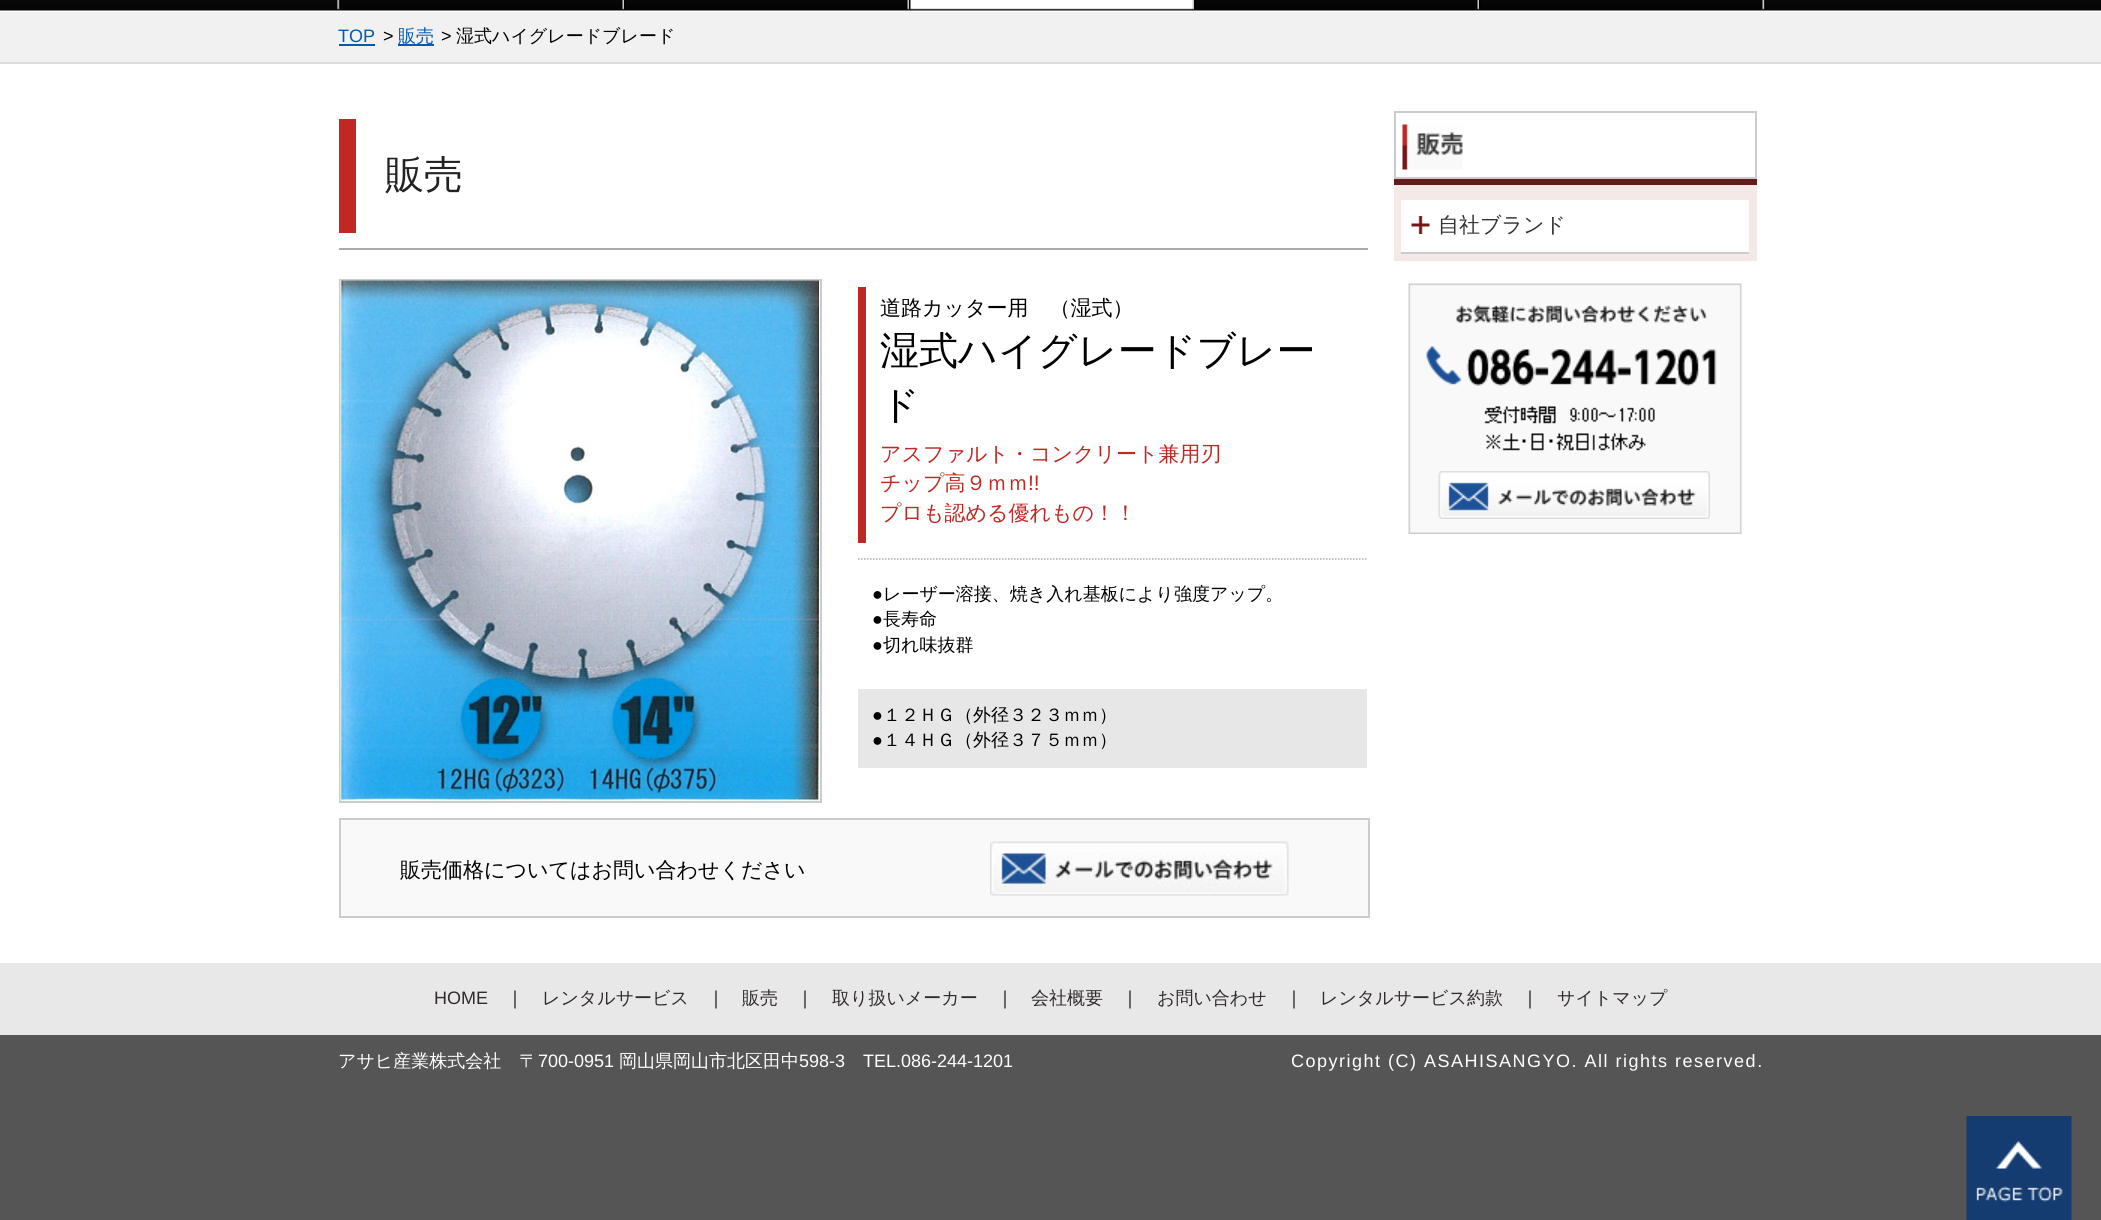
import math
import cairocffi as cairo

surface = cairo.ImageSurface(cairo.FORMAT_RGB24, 2101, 1220)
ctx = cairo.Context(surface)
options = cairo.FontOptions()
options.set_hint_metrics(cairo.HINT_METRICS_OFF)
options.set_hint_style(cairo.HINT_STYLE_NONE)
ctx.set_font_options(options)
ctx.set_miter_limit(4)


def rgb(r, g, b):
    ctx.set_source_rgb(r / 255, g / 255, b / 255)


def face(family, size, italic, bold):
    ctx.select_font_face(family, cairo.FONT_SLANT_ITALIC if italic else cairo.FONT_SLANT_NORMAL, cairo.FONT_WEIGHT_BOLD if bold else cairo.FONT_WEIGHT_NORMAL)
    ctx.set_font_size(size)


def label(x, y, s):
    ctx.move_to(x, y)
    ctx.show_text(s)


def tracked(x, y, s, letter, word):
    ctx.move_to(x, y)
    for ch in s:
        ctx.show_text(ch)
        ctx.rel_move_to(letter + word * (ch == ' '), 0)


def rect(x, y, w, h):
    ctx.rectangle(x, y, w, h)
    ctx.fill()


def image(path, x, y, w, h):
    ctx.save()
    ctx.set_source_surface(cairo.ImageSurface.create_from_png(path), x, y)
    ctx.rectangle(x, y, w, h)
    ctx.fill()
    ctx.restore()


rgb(255, 255, 255)
ctx.paint()
image('image0.png', 0, 0, 2101, 11)
image('image1.png', 337, 0, 1429, 10)
image('image2.png', 337, 0, 287, 10)
image('image3.png', 624, 0, 285, 10)
image('image4.png', 909, 0, 285, 10)
image('image5.png', 1194, 0, 285, 10)
image('image6.png', 1479, 0, 285, 10)
rgb(241, 241, 241)
rect(0, 12, 2101, 50)
rgb(221, 221, 221)
rect(0, 62, 2101, 2)
face('Liberation Sans', 18, 0, 0)
rgb(0, 89, 178)
label(338, 42, 'TOP')
rect(339, 44, 36, 2)
rgb(0, 0, 0)
label(383, 42, '>')
rgb(0, 89, 178)
rect(398, 44, 36, 2)
face('WenQuanYi Zen Hei Medium', 18, 0, 0)
label(398, 42, '販売')
face('Liberation Sans', 18, 0, 0)
rgb(0, 0, 0)
label(441, 42, '>')
face('WenQuanYi Zen Hei Medium', 18, 0, 0)
label(456, 42, '湿式ハイグレードブレード')
rgb(170, 170, 170)
rect(339, 248, 1029, 2)
rgb(192, 40, 35)
rect(339, 119, 17, 114)
face('WenQuanYi Zen Hei Medium', 39, 0, 0)
rgb(34, 34, 34)
label(385, 188, '販売')
ctx.rectangle(340, 280, 481, 522)
rgb(204, 204, 204)
ctx.stroke()
image('image7.png', 340, 280, 479, 521)
rgb(192, 40, 35)
rect(858, 287, 8, 256)
face('WenQuanYi Zen Hei Medium', 21, 0, 0)
rgb(0, 0, 0)
label(880, 315, '道路カッター用　（湿式）')
face('WenQuanYi Zen Hei Medium', 39, 0, 0)
label(880, 364, '湿式ハイグレードブレー')
label(880, 418, 'ド')
face('WenQuanYi Zen Hei Medium', 21, 0, 0)
rgb(192, 40, 35)
label(880, 461, 'アスファルト・コンクリート兼用刃')
label(880, 490, 'チップ高９ｍｍ')
face('Liberation Sans', 21, 0, 0)
label(1028, 490, '!!')
face('WenQuanYi Zen Hei Medium', 21, 0, 0)
label(880, 520, 'プロも認める優れもの！！')
ctx.new_path()
ctx.move_to(858, 559)
ctx.line_to(1366.5, 559)
rgb(170, 170, 170)
ctx.set_line_width(1.5)
ctx.set_dash([1.5, 1.5])
ctx.stroke()
face('Liberation Sans', 18, 0, 0)
rgb(0, 0, 0)
label(872, 600, '●')
face('WenQuanYi Zen Hei Medium', 18, 0, 0)
label(883, 600, 'レーザー溶接、焼き入れ基板により強度アップ。')
face('Liberation Sans', 18, 0, 0)
label(872, 625, '●')
face('WenQuanYi Zen Hei Medium', 18, 0, 0)
label(883, 625, '長寿命')
face('Liberation Sans', 18, 0, 0)
label(872, 651, '●')
face('WenQuanYi Zen Hei Medium', 18, 0, 0)
label(883, 651, '切れ味抜群')
rgb(231, 231, 231)
rect(858, 689, 509, 79)
face('Liberation Sans', 18, 0, 0)
rgb(0, 0, 0)
label(872, 721, '●')
face('WenQuanYi Zen Hei Medium', 18, 0, 0)
label(883, 721, '１２ＨＧ（外径３２３ｍｍ）')
face('Liberation Sans', 18, 0, 0)
label(872, 746, '●')
face('WenQuanYi Zen Hei Medium', 18, 0, 0)
label(883, 746, '１４ＨＧ（外径３７５ｍｍ）')
rgb(249, 249, 249)
ctx.rectangle(340, 819, 1029, 98)
ctx.fill_preserve()
rgb(204, 204, 204)
ctx.set_line_width(2)
ctx.set_dash([])
ctx.stroke()
face('WenQuanYi Zen Hei Medium', 21, 0, 0)
rgb(0, 0, 0)
label(400, 877, '販売価格についてはお問い合わせください')
image('image8.png', 990, 841, 299, 55)
ctx.rectangle(1395, 112, 361, 66)
rgb(204, 204, 204)
ctx.stroke()
image('image9.png', 1402, 124, 61, 46)
rgb(245, 233, 232)
rect(1394, 185, 363, 76)
rgb(100, 28, 26)
rect(1394, 179, 363, 6)
rgb(255, 255, 255)
rect(1401, 200, 348, 52)
image('image10.png', 1411, 216, 19, 18)
rgb(204, 204, 204)
rect(1401, 252, 348, 2)
rgb(51, 51, 51)
label(1438, 232, '自社ブランド')
image('image11.png', 1408, 283, 334, 251)
image('image12.png', 1438, 471, 272, 48)
rgb(232, 232, 232)
rect(0, 963, 2101, 72)
face('Liberation Sans', 18, 0, 0)
rgb(49, 43, 43)
label(434, 1004, 'HOME')
face('WenQuanYi Zen Hei Medium', 18, 0, 0)
rgb(0, 0, 0)
label(506, 1004, '｜')
rgb(49, 43, 43)
label(542, 1004, 'レンタルサービス')
rgb(0, 0, 0)
label(707, 1004, '｜')
rgb(49, 43, 43)
label(742, 1004, '販売')
rgb(0, 0, 0)
label(796, 1004, '｜')
rgb(49, 43, 43)
label(832, 1004, '取り扱いメーカー')
rgb(0, 0, 0)
label(996, 1004, '｜')
rgb(49, 43, 43)
label(1031, 1004, '会社概要')
rgb(0, 0, 0)
label(1121, 1004, '｜')
rgb(49, 43, 43)
label(1157, 1004, 'お問い合わせ')
rgb(0, 0, 0)
label(1285, 1004, '｜')
rgb(49, 43, 43)
label(1320, 1004, 'レンタルサービス約款')
rgb(0, 0, 0)
label(1521, 1004, '｜')
rgb(49, 43, 43)
label(1557, 1004, 'サイトマップ')
rgb(85, 85, 85)
rect(0, 1035, 2101, 185)
rgb(255, 255, 255)
label(338, 1067, 'アサヒ産業株式会社　〒')
face('Liberation Sans', 18, 0, 0)
label(538, 1067, '700-0951')
face('WenQuanYi Zen Hei Medium', 18, 0, 0)
label(619, 1067, '岡山県岡山市北区田中')
face('Liberation Sans', 18, 0, 0)
label(799, 1067, '598-3')
label(863, 1067, 'TEL.086-244-1201')
tracked(1291, 1067, 'Copyright (C) ASAHISANGYO. All rights reserved.', 1.5, 0)
image('image13.png', 1966, 1116, 106, 104)
surface.write_to_png('render.png')
